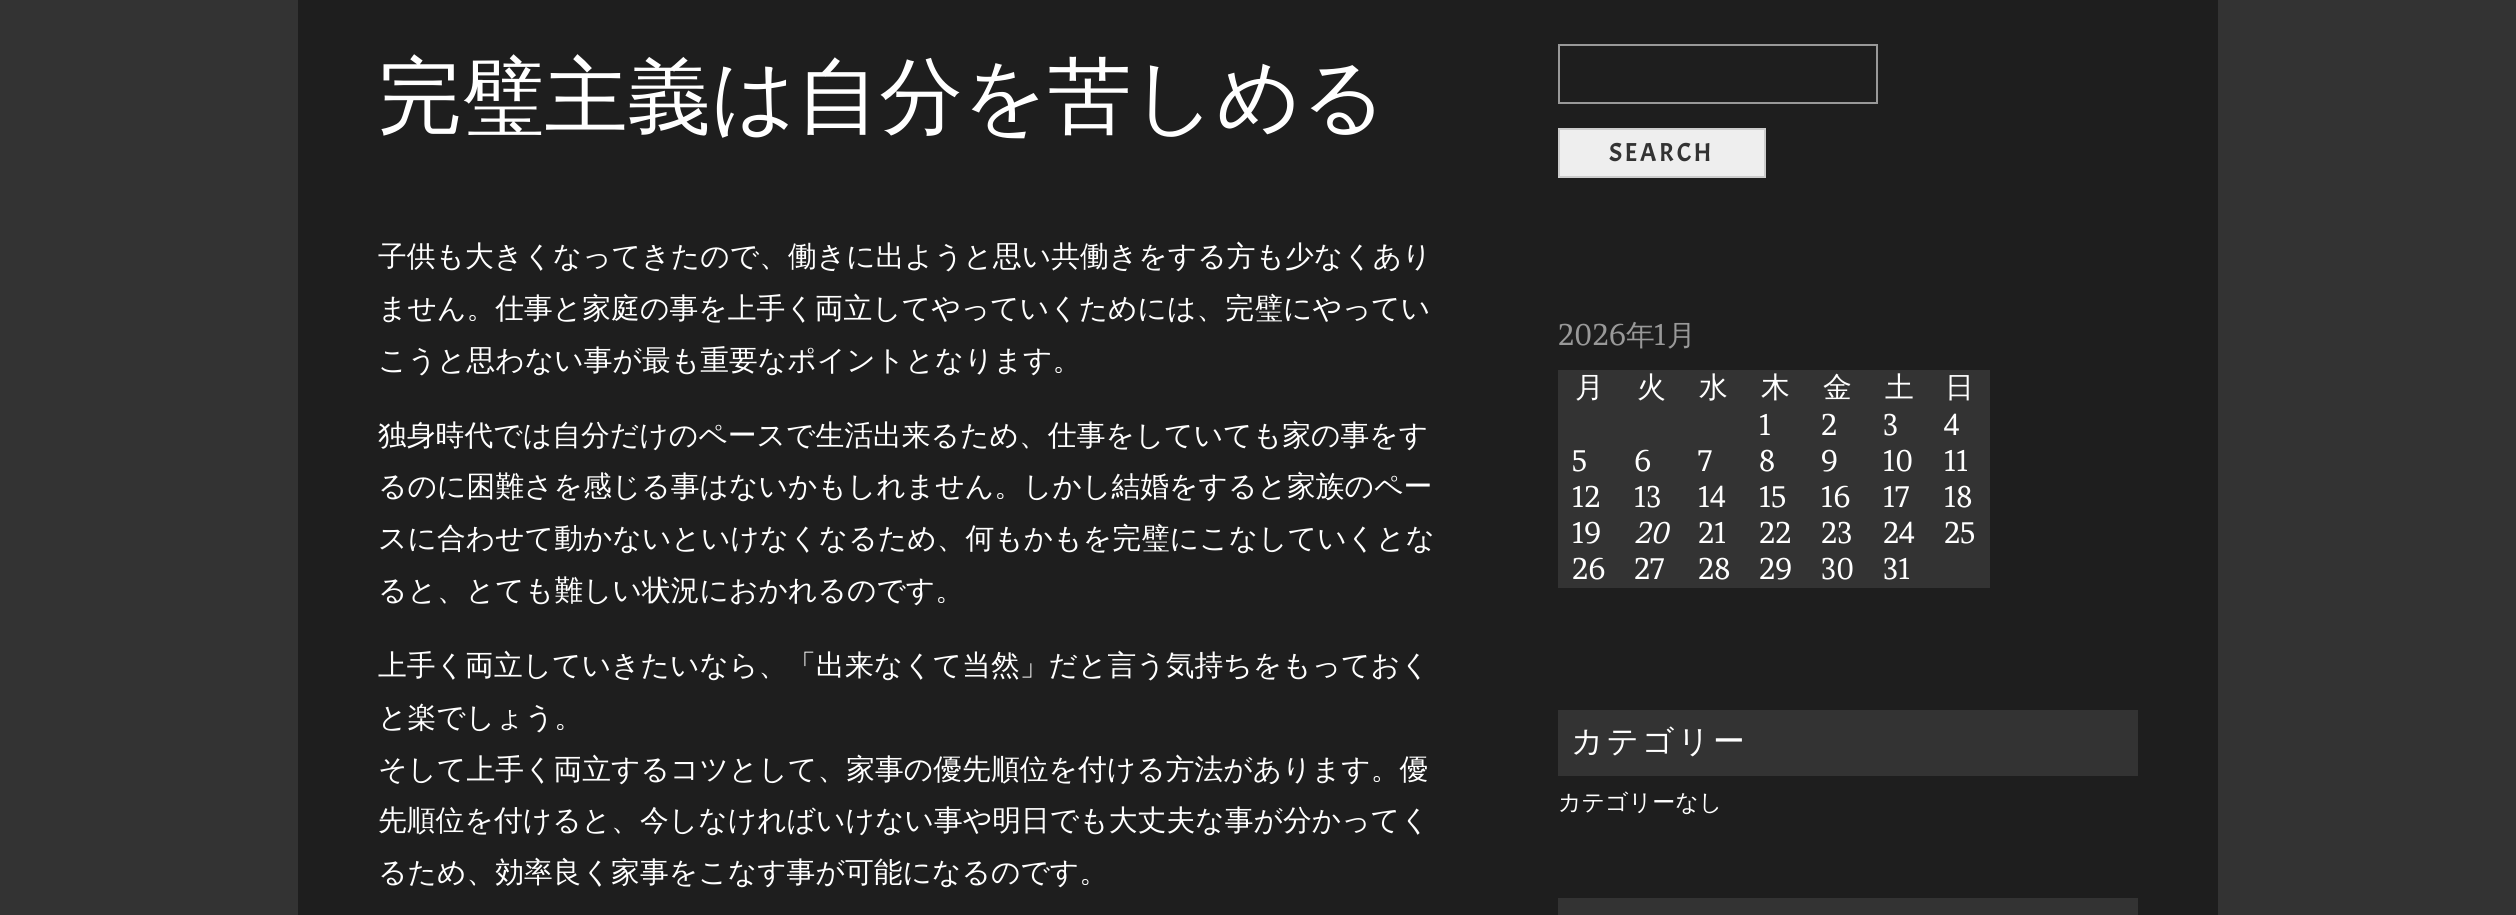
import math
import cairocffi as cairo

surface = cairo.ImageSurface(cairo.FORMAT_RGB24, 2516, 915)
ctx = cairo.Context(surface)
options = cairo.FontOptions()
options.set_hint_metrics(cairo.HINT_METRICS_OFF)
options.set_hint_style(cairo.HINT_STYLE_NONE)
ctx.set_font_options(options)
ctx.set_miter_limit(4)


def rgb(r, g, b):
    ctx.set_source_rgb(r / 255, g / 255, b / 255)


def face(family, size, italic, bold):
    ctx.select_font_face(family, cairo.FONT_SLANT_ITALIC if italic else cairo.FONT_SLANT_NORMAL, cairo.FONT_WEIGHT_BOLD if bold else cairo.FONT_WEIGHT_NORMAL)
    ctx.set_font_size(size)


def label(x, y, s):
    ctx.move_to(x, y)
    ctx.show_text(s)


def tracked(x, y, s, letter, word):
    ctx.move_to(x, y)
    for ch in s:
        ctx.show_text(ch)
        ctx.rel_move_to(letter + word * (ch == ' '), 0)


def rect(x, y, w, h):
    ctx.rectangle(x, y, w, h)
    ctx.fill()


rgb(51, 51, 51)
ctx.paint()
rgb(30, 30, 30)
rect(298, 0, 1920, 915)
face('WenQuanYi Zen Hei Medium', 83.25, 0, 0)
rgb(255, 255, 255)
label(378, 125, '完璧主義は自分を苦しめる')
face('WenQuanYi Zen Hei Medium', 28.8, 0, 0)
label(378, 266, '子供も大きくなってきたので、働きに出ようと思い共働きをする方も少なくあり')
label(378, 318, 'ません。仕事と家庭の事を上手く両立してやっていくためには、完璧にやってい')
label(378, 370, 'こうと思わない事が最も重要なポイントとなります。')
label(378, 445, '独身時代では自分だけのペースで生活出来るため、仕事をしていても家の事をす')
label(378, 496, 'るのに困難さを感じる事はないかもしれません。しかし結婚をすると家族のペー')
label(378, 548, 'スに合わせて動かないといけなくなるため、何もかもを完璧にこなしていくとな')
label(378, 600, 'ると、とても難しい状況におかれるのです。')
label(378, 675, '上手く両立していきたいなら、「出来なくて当然」だと言う気持ちをもっておく')
label(378, 727, 'と楽でしょう。')
label(378, 779, 'そして上手く両立するコツとして、家事の優先順位を付ける方法があります。優')
label(378, 830, '先順位を付けると、今しなければいけない事や明日でも大丈夫な事が分かってく')
label(378, 882, 'るため、効率良く家事をこなす事が可能になるのです。')
ctx.rectangle(1559, 45, 318, 58)
rgb(153, 153, 153)
ctx.stroke()
rgb(238, 238, 238)
ctx.rectangle(1559, 129, 206, 48)
ctx.fill_preserve()
rgb(204, 204, 204)
ctx.stroke()
face('Acme', 26, 0, 0)
rgb(51, 51, 51)
tracked(1609, 161, 'SEARCH', 2.5, 0)
face('Amethysta', 28.8, 0, 0)
rgb(153, 153, 153)
label(1558, 345, '2026')
face('WenQuanYi Zen Hei Medium', 28.8, 0, 0)
label(1626, 345, '年')
face('Amethysta', 28.8, 0, 0)
label(1654, 345, '1')
face('WenQuanYi Zen Hei Medium', 28.8, 0, 0)
label(1667, 345, '月')
rgb(51, 51, 51)
rect(1558, 370, 432, 38)
rgb(255, 255, 255)
label(1575, 397, '月')
label(1637, 397, '火')
label(1699, 397, '水')
label(1761, 397, '木')
label(1823, 397, '金')
label(1885, 397, '土')
label(1945, 397, '日')
rgb(51, 51, 51)
rect(1558, 408, 432, 36)
face('Amethysta', 28.8, 0, 0)
rgb(255, 255, 255)
label(1759, 435, '1')
label(1821, 435, '2')
label(1883, 435, '3')
label(1944, 435, '4')
rgb(51, 51, 51)
rect(1558, 444, 432, 36)
rgb(255, 255, 255)
label(1572, 471, '5')
label(1634, 471, '6')
label(1698, 471, '7')
label(1759, 471, '8')
label(1821, 471, '9')
label(1883, 471, '10')
label(1944, 471, '11')
rgb(51, 51, 51)
rect(1558, 480, 432, 36)
rgb(255, 255, 255)
label(1572, 507, '12')
label(1634, 507, '13')
label(1698, 507, '14')
label(1759, 507, '15')
label(1821, 507, '16')
label(1883, 507, '17')
label(1944, 507, '18')
rgb(51, 51, 51)
rect(1558, 516, 432, 36)
rgb(255, 255, 255)
label(1572, 543, '19')
face('Amethysta', 28.8, 1, 0)
label(1634, 543, '20')
face('Amethysta', 28.8, 0, 0)
label(1698, 543, '21')
label(1759, 543, '22')
label(1821, 543, '23')
label(1883, 543, '24')
label(1944, 543, '25')
rgb(51, 51, 51)
rect(1558, 552, 432, 36)
rgb(255, 255, 255)
label(1572, 579, '26')
label(1634, 579, '27')
label(1698, 579, '28')
label(1759, 579, '29')
label(1821, 579, '30')
label(1883, 579, '31')
rgb(51, 51, 51)
rect(1558, 710, 580, 66)
face('WenQuanYi Zen Hei Medium', 31.75, 0, 0)
rgb(255, 255, 255)
tracked(1571, 752, 'カテゴリー', 3, 0)
face('WenQuanYi Zen Hei Medium', 23, 0, 0)
label(1558, 810, 'カテゴリーなし')
rgb(51, 51, 51)
rect(1558, 898, 580, 17)
surface.write_to_png('render.png')
